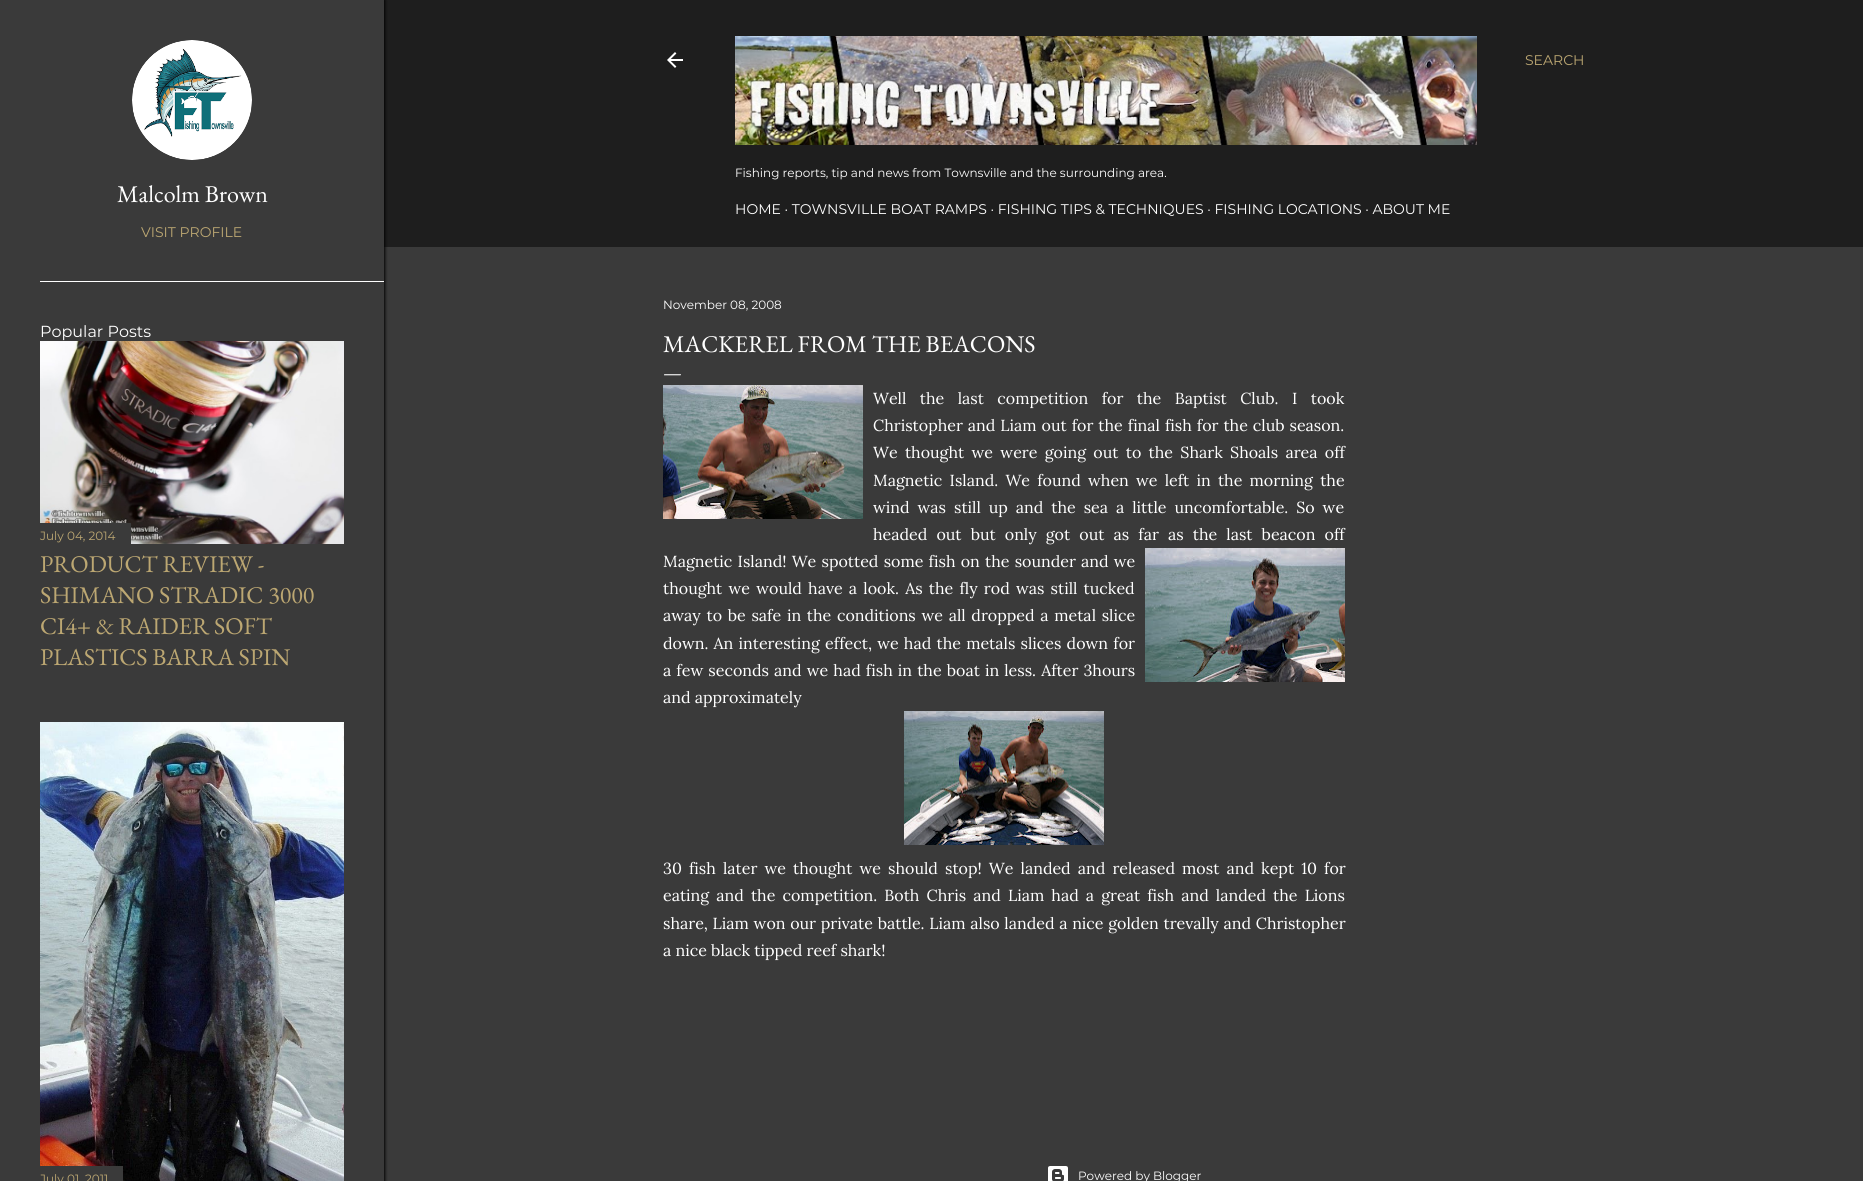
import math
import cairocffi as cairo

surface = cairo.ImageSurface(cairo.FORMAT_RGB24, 1863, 1181)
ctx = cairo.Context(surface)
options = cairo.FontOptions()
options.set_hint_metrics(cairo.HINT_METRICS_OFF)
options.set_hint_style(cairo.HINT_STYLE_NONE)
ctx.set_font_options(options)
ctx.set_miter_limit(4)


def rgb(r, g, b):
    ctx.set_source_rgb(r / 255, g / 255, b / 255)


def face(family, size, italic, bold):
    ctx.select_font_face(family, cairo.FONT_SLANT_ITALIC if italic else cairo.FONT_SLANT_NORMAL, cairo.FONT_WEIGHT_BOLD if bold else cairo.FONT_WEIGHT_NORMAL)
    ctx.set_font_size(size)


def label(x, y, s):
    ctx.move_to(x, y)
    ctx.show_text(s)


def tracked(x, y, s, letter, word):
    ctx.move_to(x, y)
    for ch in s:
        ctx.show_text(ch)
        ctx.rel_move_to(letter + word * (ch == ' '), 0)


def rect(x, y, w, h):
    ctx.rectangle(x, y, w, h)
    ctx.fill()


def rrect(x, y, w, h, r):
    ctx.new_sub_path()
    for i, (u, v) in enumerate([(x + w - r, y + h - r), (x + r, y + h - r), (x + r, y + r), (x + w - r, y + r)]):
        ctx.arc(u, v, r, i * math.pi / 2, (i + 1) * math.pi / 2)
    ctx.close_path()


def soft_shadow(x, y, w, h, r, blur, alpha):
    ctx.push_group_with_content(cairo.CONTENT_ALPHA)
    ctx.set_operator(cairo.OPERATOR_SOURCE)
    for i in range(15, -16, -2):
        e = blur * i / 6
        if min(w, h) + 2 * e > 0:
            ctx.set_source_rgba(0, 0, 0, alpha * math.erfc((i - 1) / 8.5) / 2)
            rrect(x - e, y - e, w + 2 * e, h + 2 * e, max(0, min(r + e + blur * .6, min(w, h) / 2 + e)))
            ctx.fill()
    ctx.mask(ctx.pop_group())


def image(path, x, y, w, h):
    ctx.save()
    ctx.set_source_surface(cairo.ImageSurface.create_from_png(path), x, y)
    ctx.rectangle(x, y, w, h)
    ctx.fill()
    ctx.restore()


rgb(58, 58, 58)
ctx.paint()
rgb(30, 30, 30)
rect(384, 0, 1479, 247)
ctx.save()
ctx.rectangle(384, 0, 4, 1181)
ctx.clip()
rgb(0, 0, 0)
soft_shadow(1, 0, 384, 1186, 0, 1.5, 1)
ctx.restore()
image('image0.png', 132, 40, 120, 120)
face('EB Garamond', 24, 0, 0)
rgb(255, 255, 255)
label(117, 202, 'Malcolm Brown')
face('Montserrat', 14, 0, 0)
rgb(188, 167, 114)
label(141, 237, 'VISIT PROFILE')
rgb(255, 255, 255)
rect(40, 281, 344, 1)
face('Montserrat', 16, 0, 0)
label(40, 337, 'Popular Posts')
image('image1.png', 40, 341, 304, 203)
rgb(58, 58, 58)
rect(40, 523, 91, 21)
face('Montserrat', 12, 0, 0)
rgb(188, 167, 114)
label(40, 540, 'July 04, 2014')
face('EB Garamond', 24, 0, 0)
label(40, 572, 'PRODUCT REVIEW -')
label(40, 603, 'SHIMANO STRADIC 3000')
label(40, 634, 'CI4+ & RAIDER SOFT')
label(40, 665, 'PLASTICS BARRA SPIN')
image('image2.png', 40, 722, 304, 459)
rgb(58, 58, 58)
rect(40, 1166, 83, 15)
face('Montserrat', 12, 0, 0)
rgb(188, 167, 114)
label(40, 1183, 'July 01, 2011')
image('image3.png', 667, 52, 16, 16)
face('Montserrat', 14, 0, 0)
label(1525, 65, 'SEARCH')
image('image4.png', 735, 36, 742, 109)
face('Montserrat', 12, 0, 0)
rgb(255, 255, 255)
label(735, 177, 'Fishing reports, tip and news from Townsville and the surrounding area.')
face('Montserrat', 14, 0, 0)
label(735, 214, 'HOME · TOWNSVILLE BOAT RAMPS · FISHING TIPS & TECHNIQUES · FISHING LOCATIONS · ABOUT ME')
face('Montserrat', 12, 0, 0)
label(663, 309, 'November 08, 2008')
face('EB Garamond', 24, 0, 0)
label(663, 352, 'MACKEREL FROM THE BEACONS')
face('EB Garamond', 20, 0, 0)
label(663, 379, '—')
image('image5.png', 663, 385, 200, 134)
face('Lora', 16, 0, 0)
tracked(873, 404, 'Well the last competition for the Baptist Club. I took', 0, 9.25)
tracked(873, 431, 'Christopher and Liam out for the final fish for the club season.', 0, 0.75)
tracked(873, 458, 'We thought we were going out to the Shark Shoals area off', 0, 3.1)
tracked(873, 486, 'Magnetic Island. We found when we left in the morning the', 0, 3)
tracked(873, 513, 'wind was still up and the sea a little uncomfortable. So we', 0, 3.75)
tracked(873, 540, 'headed out but only got out as far as the last beacon off', 0, 4.9)
tracked(663, 567, 'Magnetic Island! We spotted some fish on the sounder and we', 0, 1)
image('image6.png', 1145, 548, 200, 134)
tracked(663, 594, 'thought we would have a look. As the fly rod was still tucked', 0, 2)
tracked(663, 621, 'away to be safe in the conditions we all dropped a metal slice', 0, 1.5)
tracked(663, 649, 'down. An interesting effect, we had the metals slices down for', 0, 1)
tracked(663, 676, 'a few seconds and we had fish in the boat in less. After 3hours', 0, 0.9)
label(663, 703, 'and approximately')
image('image7.png', 904, 711, 200, 134)
tracked(663, 874, '30 fish later we thought we should stop! We landed and released most and kept 10 for', 0, 2.9)
tracked(663, 901, 'eating and the competition. Both Chris and Liam had a great fish and landed the Lions', 0, 2.9)
tracked(663, 929, 'share, Liam won our private battle. Liam also landed a nice golden trevally and Christopher', 0, 0.5)
label(663, 956, 'a nice black tipped reef shark!')
image('image8.png', 1048, 1166, 20, 15)
face('Montserrat', 12, 0, 0)
label(1078, 1180, 'Powered by Blogger')
surface.write_to_png('render.png')
